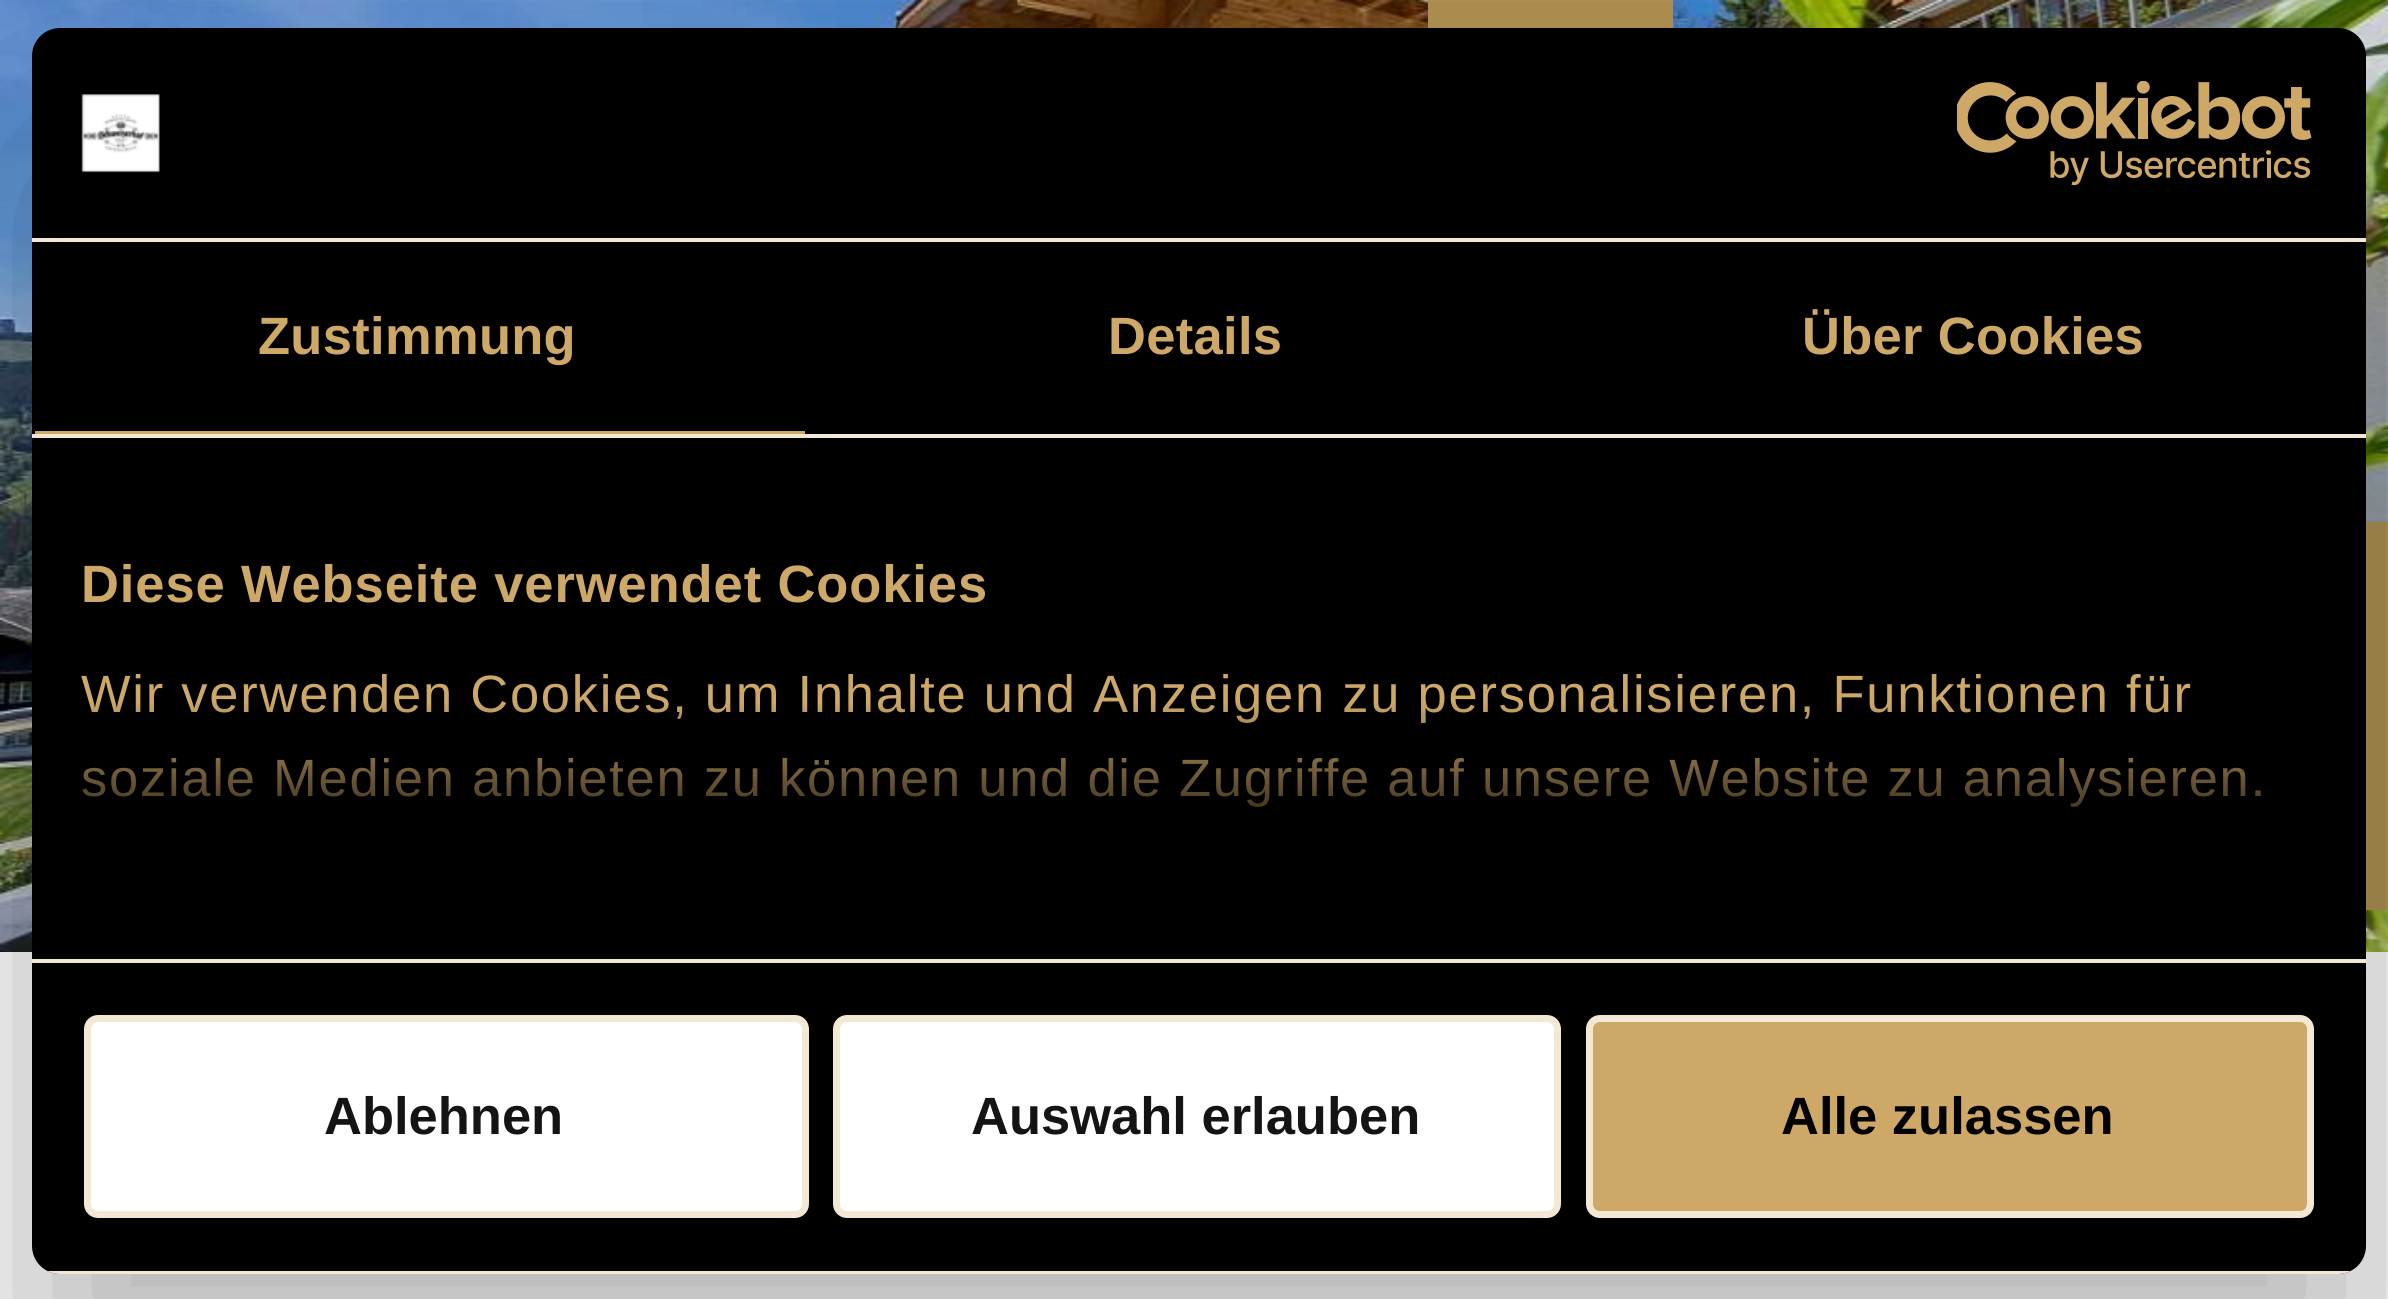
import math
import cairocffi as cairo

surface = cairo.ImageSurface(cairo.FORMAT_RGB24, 2388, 1299)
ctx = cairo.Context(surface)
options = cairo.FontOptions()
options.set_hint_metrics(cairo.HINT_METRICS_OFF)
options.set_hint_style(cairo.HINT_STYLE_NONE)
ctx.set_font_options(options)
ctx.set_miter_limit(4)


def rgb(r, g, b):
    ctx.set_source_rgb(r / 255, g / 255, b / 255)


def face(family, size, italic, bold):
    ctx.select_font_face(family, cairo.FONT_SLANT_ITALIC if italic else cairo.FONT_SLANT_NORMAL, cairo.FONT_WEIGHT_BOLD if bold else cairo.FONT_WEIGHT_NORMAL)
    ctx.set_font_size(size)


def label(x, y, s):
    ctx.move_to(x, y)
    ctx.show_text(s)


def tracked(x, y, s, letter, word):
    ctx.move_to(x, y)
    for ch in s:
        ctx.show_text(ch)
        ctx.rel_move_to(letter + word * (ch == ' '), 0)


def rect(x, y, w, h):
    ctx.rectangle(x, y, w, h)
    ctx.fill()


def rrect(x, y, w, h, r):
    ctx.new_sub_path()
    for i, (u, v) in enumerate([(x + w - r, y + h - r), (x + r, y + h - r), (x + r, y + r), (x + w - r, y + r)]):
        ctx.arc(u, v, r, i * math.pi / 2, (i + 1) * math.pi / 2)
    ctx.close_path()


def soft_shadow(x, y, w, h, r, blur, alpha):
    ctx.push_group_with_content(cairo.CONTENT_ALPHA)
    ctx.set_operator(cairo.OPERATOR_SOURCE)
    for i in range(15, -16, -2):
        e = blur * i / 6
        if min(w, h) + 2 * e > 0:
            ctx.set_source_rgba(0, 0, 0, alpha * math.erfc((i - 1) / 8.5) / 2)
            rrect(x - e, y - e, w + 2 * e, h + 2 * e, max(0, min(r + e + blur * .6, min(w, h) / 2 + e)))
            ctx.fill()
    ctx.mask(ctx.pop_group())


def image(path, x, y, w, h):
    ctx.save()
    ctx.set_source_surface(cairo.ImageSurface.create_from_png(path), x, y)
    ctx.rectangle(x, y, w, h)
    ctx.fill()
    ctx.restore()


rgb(255, 255, 255)
ctx.paint()
image('image0.png', 0, 0, 2388, 952)
rgb(178, 147, 83)
rect(1428, 0, 245, 28)
rect(2366, 522, 22, 388)
ctx.save()
ctx.set_fill_rule(cairo.FILL_RULE_EVEN_ODD)
ctx.new_path()
ctx.move_to(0, 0)
ctx.line_to(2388, 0)
ctx.line_to(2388, 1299)
ctx.line_to(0, 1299)
ctx.close_path()
ctx.move_to(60, 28)
ctx.line_to(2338, 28)
ctx.curve_to(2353.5, 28, 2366, 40.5, 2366, 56)
ctx.line_to(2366, 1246)
ctx.curve_to(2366, 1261.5, 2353.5, 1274, 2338, 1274)
ctx.line_to(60, 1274)
ctx.curve_to(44.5, 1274, 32, 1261.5, 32, 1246)
ctx.line_to(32, 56)
ctx.curve_to(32, 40.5, 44.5, 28, 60, 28)
ctx.close_path()
ctx.clip()
rgb(0, 0, 0)
soft_shadow(32, 140, 2334, 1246, 28, 119, 0.3)
ctx.restore()
rgb(0, 0, 0)
rrect(32, 28, 2334, 1246, 28)
ctx.fill()
rgb(242, 232, 211)
rect(32, 238, 2334, 4)
image('image1.png', 81, 94, 79, 79)
image('image2.png', 1957, 81, 355, 105)
rect(32, 434, 2334, 4)
rgb(205, 168, 103)
rect(35, 431, 770, 3)
face('Liberation Sans', 52.5, 0, 1)
tracked(258, 354, 'Zustimmung', 0.3, 0)
tracked(1108, 354, 'Details', 0.3, 0)
tracked(1802, 354, 'Über Cookies', 0.3, 0)
rgb(242, 232, 211)
rect(32, 959, 2334, 4)
rgb(205, 168, 103)
tracked(81, 602, 'Diese Webseite verwendet Cookies', 0.9, 0)
face('Liberation Sans', 52.5, 0, 0)
tracked(81, 712, 'Wir verwenden Cookies, um Inhalte und Anzeigen zu personalisieren, Funktionen für', 1.75, 0)
tracked(81, 796, 'soziale Medien anbieten zu können und die Zugriffe auf unsere Website zu analysieren.', 1.75, 0)
gradient = cairo.LinearGradient(1174, 959, 1174, 700)
gradient.add_color_stop_rgba(0, 0, 0, 0, 1)
gradient.add_color_stop_rgba(0.5, 0, 0, 0, 0.8)
gradient.add_color_stop_rgba(1, 0, 0, 0, 0)
ctx.set_source(gradient)
rect(82, 703, 2178, 104)
ctx.save()
rrect(32, 28, 2334, 1246, 28)
ctx.clip()
rgb(242, 232, 211)
rect(47, 1271, 2304, 3)
ctx.restore()
rgb(255, 255, 255)
rrect(87.5, 1018.5, 718, 196, 10.5)
ctx.fill_preserve()
rgb(242, 232, 211)
ctx.set_line_width(7)
ctx.stroke()
face('Liberation Sans', 52.5, 0, 1)
rgb(20, 20, 20)
label(324, 1134, 'Ablehnen')
rgb(255, 255, 255)
rrect(836.5, 1018.5, 721, 196, 10.5)
ctx.fill_preserve()
rgb(242, 232, 211)
ctx.stroke()
rgb(20, 20, 20)
label(971, 1134, 'Auswahl erlauben')
rgb(205, 168, 103)
rrect(1589.5, 1018.5, 721, 196, 10.5)
ctx.fill_preserve()
rgb(242, 232, 211)
ctx.stroke()
rgb(0, 0, 0)
label(1781, 1134, 'Alle zulassen')
surface.write_to_png('render.png')
